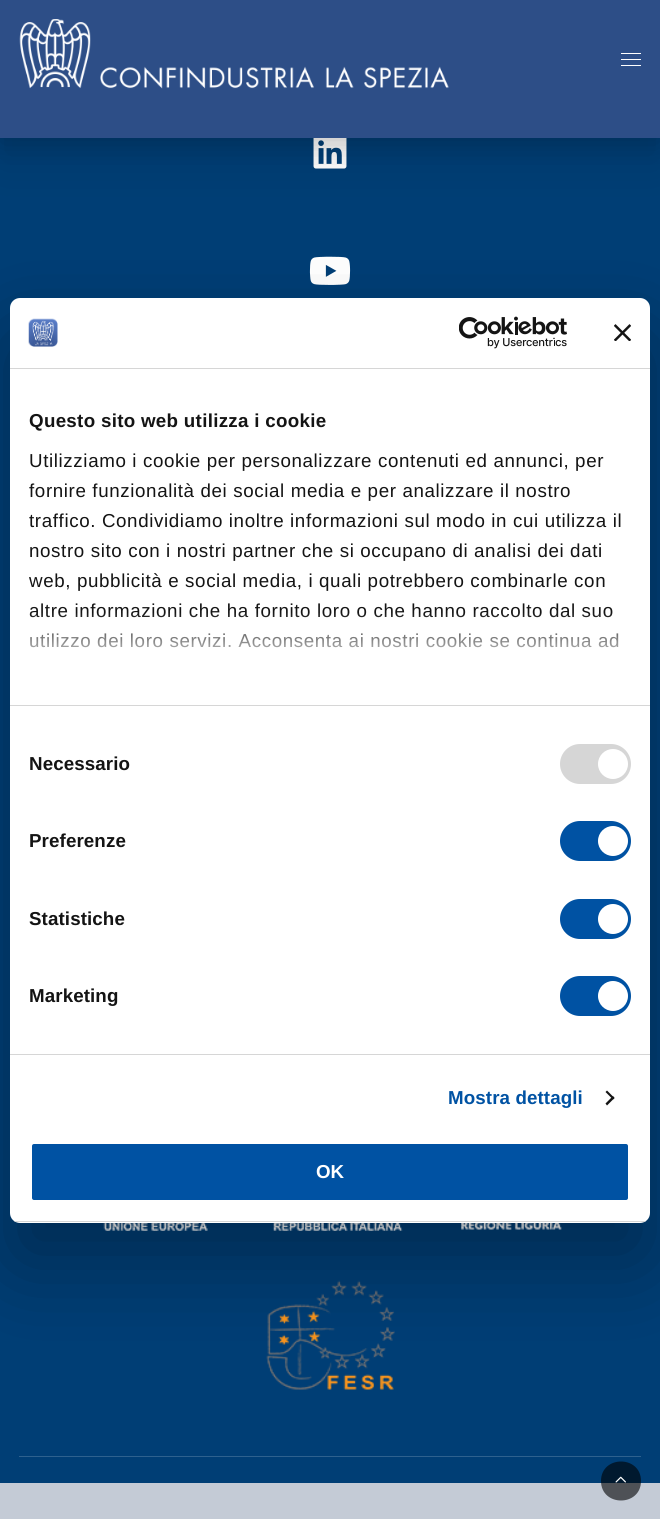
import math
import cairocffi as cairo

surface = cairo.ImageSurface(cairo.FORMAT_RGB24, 660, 1519)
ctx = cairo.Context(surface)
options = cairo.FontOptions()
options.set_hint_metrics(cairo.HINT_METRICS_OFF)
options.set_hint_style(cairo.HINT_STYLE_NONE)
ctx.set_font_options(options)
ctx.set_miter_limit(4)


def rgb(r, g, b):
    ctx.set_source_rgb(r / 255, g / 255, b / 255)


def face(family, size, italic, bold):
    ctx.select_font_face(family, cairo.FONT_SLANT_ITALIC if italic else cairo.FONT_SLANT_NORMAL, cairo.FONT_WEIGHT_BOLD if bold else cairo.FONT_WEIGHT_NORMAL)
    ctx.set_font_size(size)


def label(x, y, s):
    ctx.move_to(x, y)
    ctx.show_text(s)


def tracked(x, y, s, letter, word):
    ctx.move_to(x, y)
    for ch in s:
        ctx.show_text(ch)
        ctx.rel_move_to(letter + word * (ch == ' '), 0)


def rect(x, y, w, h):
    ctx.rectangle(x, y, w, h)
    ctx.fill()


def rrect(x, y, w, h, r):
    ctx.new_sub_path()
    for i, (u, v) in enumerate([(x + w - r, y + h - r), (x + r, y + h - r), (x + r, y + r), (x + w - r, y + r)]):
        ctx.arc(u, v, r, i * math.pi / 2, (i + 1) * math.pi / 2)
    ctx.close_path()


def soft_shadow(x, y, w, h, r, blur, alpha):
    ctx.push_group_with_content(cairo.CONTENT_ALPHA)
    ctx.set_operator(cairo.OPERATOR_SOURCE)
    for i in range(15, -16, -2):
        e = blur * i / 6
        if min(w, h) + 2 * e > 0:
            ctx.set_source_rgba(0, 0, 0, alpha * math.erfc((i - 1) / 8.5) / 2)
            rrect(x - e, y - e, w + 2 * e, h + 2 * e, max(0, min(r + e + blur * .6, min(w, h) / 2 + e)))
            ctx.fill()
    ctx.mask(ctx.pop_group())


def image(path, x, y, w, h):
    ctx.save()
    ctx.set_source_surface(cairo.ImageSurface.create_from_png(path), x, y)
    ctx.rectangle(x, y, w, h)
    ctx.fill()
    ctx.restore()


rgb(196, 203, 214)
ctx.paint()
rgb(45, 78, 135)
rect(0, 0, 660, 138)
rgb(0, 62, 117)
rect(0, 138, 660, 1345)
image('image1.png', 313, 138, 34, 31)
ctx.save()
ctx.set_fill_rule(cairo.FILL_RULE_EVEN_ODD)
ctx.new_path()
ctx.move_to(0, 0)
ctx.line_to(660, 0)
ctx.line_to(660, 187)
ctx.line_to(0, 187)
ctx.close_path()
ctx.move_to(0, 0)
ctx.line_to(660, 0)
ctx.line_to(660, 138)
ctx.line_to(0, 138)
ctx.close_path()
ctx.clip()
rgb(0, 0, 0)
soft_shadow(0, 6, 660, 138, 0, 14, 0.15)
ctx.restore()
ctx.save()
ctx.set_fill_rule(cairo.FILL_RULE_EVEN_ODD)
ctx.new_path()
ctx.move_to(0, 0)
ctx.line_to(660, 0)
ctx.line_to(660, 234)
ctx.line_to(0, 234)
ctx.close_path()
ctx.move_to(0, 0)
ctx.line_to(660, 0)
ctx.line_to(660, 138)
ctx.line_to(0, 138)
ctx.close_path()
ctx.clip()
rgb(0, 0, 0)
soft_shadow(0, 24, 660, 137, 0, 24, 0.1)
ctx.restore()
image('image0.png', 19, 19, 430, 70)
rgb(255, 255, 255)
rect(621, 53, 20, 1)
rect(621, 59, 20, 1)
rect(621, 65, 20, 1)
image('image2.png', 309, 256, 42, 29)
rgb(46, 97, 142)
rect(19, 1456, 622, 1)
image('image3.png', 103, 1223, 105, 8)
image('image4.png', 273, 1223, 130, 8)
image('image5.png', 461, 1223, 101, 7)
image('image6.png', 266, 1280, 129, 110)
ctx.set_source_rgba(0, 0, 0, 0.6)
ctx.new_path()
ctx.move_to(641, 1481)
ctx.curve_to(641, 1507, 601, 1507, 601, 1481)
ctx.curve_to(601, 1455, 641, 1455, 641, 1481)
ctx.close_path()
ctx.fill()
image('image7.png', 615, 1476, 11, 7)
rgb(0, 0, 0)
soft_shadow(10, 338, 640, 925, 10, 42.5, 0.3)
rgb(255, 255, 255)
rrect(10, 298, 640, 925, 10)
ctx.fill()
rgb(214, 214, 214)
rect(10, 368, 640, 1)
image('image8.png', 28, 318, 30, 29)
image('image9.png', 459, 316, 108, 33)
image('image10.png', 614, 324, 17, 17)
rect(10, 705, 640, 1)
face('Liberation Sans', 18.75, 0, 1)
rgb(20, 20, 20)
tracked(29, 427, 'Questo sito web utilizza i cookie', 0.3, 0)
face('Liberation Sans', 18.75, 0, 0)
tracked(29, 467, 'Utilizziamo i cookie per personalizzare contenuti ed annunci, per', 0.62, 0)
tracked(29, 497, 'fornire funzionalità dei social media e per analizzare il nostro', 0.62, 0)
tracked(29, 527, 'traffico. Condividiamo inoltre informazioni sul modo in cui utilizza il', 0.62, 0)
tracked(29, 557, 'nostro sito con i nostri partner che si occupano di analisi dei dati', 0.62, 0)
tracked(29, 587, 'web, pubblicità e social media, i quali potrebbero combinarle con', 0.62, 0)
tracked(29, 617, 'altre informazioni che ha fornito loro o che hanno raccolto dal suo', 0.62, 0)
tracked(29, 647, 'utilizzo dei loro servizi. Acconsenta ai nostri cookie se continua ad', 0.62, 0)
gradient = cairo.LinearGradient(322, 705, 322, 612)
gradient.add_color_stop_rgba(0, 1, 1, 1, 1)
gradient.add_color_stop_rgba(0.5, 1, 1, 1, 0.8)
gradient.add_color_stop_rgba(1, 1, 1, 1, 0)
ctx.set_source(gradient)
rect(29, 613, 590, 35)
rgb(214, 214, 214)
rect(10, 1054, 640, 1)
face('Liberation Sans', 18.75, 0, 1)
rgb(20, 20, 20)
tracked(29, 770, 'Necessario', 0.1, 0)
rgb(214, 214, 214)
rrect(560, 744, 71, 40, 20)
ctx.fill()
rgb(255, 255, 255)
ctx.arc(613, 764, 15, 0, 2 * math.pi)
ctx.fill()
rgb(20, 20, 20)
tracked(29, 847, 'Preferenze', 0.1, 0)
rgb(0, 82, 163)
rrect(560, 821, 71, 40, 20)
ctx.fill()
rgb(255, 255, 255)
ctx.arc(613, 841, 15, 0, 2 * math.pi)
ctx.fill()
rgb(20, 20, 20)
tracked(29, 925, 'Statistiche', 0.1, 0)
rgb(0, 82, 163)
rrect(560, 899, 71, 40, 20)
ctx.fill()
rgb(255, 255, 255)
ctx.arc(613, 919, 15, 0, 2 * math.pi)
ctx.fill()
rgb(20, 20, 20)
tracked(29, 1002, 'Marketing', 0.1, 0)
rgb(0, 82, 163)
rrect(560, 976, 71, 40, 20)
ctx.fill()
rgb(255, 255, 255)
ctx.arc(613, 996, 15, 0, 2 * math.pi)
ctx.fill()
rgb(0, 82, 163)
tracked(448, 1104, 'Mostra dettagli', 0.1, 0)
rgb(20, 20, 20)
ctx.new_path()
ctx.move_to(607, 1090.5)
ctx.line_to(614.5, 1098)
ctx.line_to(613, 1099.5)
ctx.line_to(605.5, 1092)
ctx.close_path()
ctx.fill()
ctx.new_path()
ctx.move_to(613, 1096)
ctx.line_to(614.5, 1098)
ctx.line_to(607, 1105.5)
ctx.line_to(605.5, 1103.5)
ctx.close_path()
ctx.fill()
ctx.save()
rrect(10, 298, 640, 925, 10)
ctx.clip()
rgb(214, 214, 214)
rect(10, 1221, 640, 1)
ctx.restore()
rgb(0, 82, 163)
rrect(30.5, 1142.5, 599, 59, 3.5)
ctx.fill_preserve()
rgb(255, 255, 255)
ctx.set_line_width(3)
ctx.stroke()
label(316, 1178, 'OK')
surface.write_to_png('render.png')
